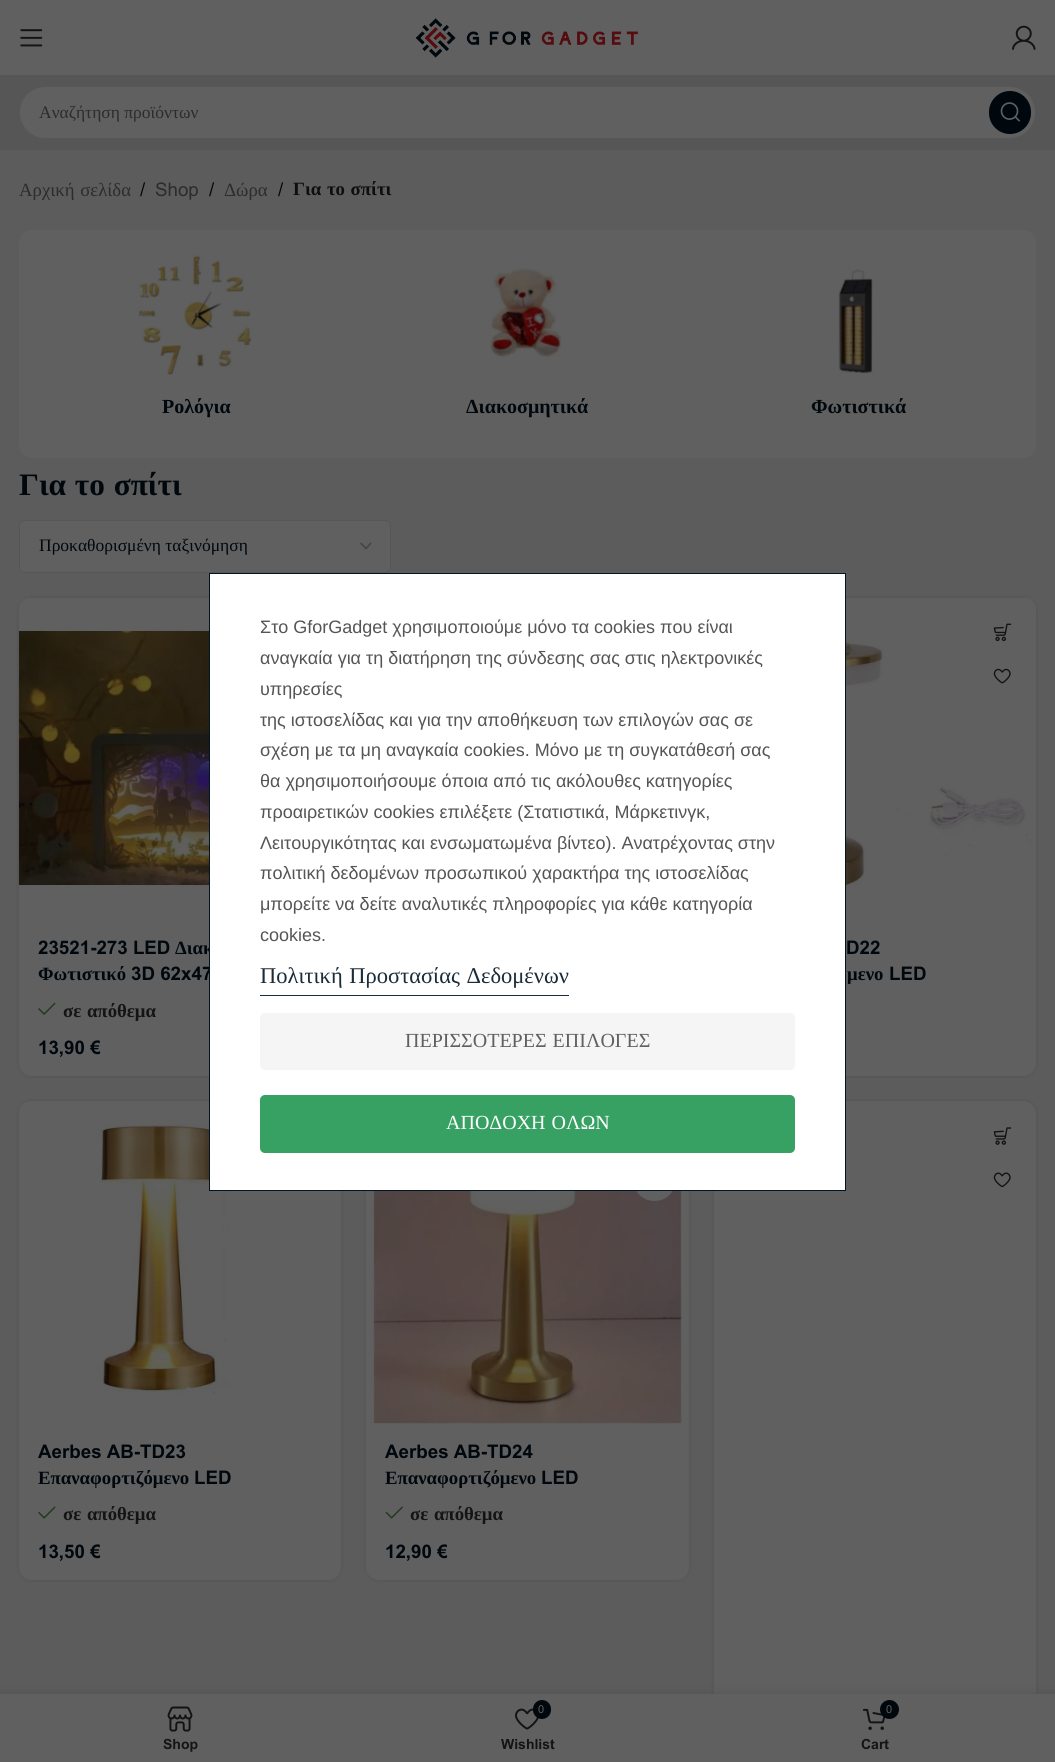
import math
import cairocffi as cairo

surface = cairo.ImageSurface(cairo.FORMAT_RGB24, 1055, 1762)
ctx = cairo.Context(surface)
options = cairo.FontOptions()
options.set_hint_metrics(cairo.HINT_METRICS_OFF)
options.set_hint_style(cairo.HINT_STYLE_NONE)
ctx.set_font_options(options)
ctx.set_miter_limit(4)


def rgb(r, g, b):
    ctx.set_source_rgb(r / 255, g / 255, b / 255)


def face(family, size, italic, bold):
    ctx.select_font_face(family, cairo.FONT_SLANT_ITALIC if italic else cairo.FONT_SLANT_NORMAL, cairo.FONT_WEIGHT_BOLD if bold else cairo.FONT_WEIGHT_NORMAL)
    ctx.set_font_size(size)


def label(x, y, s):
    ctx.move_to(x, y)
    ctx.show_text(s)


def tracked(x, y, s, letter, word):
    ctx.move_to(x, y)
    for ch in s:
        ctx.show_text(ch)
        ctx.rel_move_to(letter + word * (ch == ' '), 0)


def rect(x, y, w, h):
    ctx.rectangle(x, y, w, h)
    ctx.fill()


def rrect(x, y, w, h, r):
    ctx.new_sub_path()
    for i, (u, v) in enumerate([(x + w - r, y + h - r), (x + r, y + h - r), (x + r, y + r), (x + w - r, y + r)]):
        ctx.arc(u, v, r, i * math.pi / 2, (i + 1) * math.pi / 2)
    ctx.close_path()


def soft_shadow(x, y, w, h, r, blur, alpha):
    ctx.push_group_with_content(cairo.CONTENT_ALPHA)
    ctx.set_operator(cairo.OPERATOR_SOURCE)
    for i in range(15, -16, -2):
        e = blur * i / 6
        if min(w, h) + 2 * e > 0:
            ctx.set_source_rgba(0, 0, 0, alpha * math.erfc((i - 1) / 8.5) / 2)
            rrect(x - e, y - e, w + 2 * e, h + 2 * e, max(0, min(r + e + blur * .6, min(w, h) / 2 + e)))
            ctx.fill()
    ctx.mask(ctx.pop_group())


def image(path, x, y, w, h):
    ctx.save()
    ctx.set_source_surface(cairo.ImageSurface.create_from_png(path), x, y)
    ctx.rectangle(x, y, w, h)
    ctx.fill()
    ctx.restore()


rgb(96, 96, 96)
ctx.paint()
image('image0.png', 20, 29, 23, 18)
image('image1.png', 415, 18, 224, 40)
image('image2.png', 1012, 25, 24, 25)
rgb(86, 86, 86)
rect(0, 75, 1055, 75)
rgb(96, 96, 96)
rrect(19, 86, 1017, 53, 26.5)
ctx.fill()
rrect(19.5, 86.5, 1016, 52, 26)
ctx.set_source_rgba(0, 0, 0, 0.1)
ctx.set_line_width(1)
ctx.stroke()
face('Liberation Serif', 17.5, 0, 0)
rgb(44, 44, 44)
label(39, 118, 'Αναζήτηση προϊόντων')
rgb(0, 8, 14)
rrect(989, 91, 42, 43, 21)
ctx.fill()
image('image3.png', 1000, 102, 20, 20)
rgb(92, 92, 92)
rect(0, 150, 1055, 1544)
face('Liberation Serif', 18.75, 0, 0)
rgb(44, 44, 44)
tracked(19, 196, 'Αρχική σελίδα', 0, 1)
face('Arial', 18.75, 0, 0)
rgb(0, 8, 14)
label(140, 196, '/')
rgb(44, 44, 44)
label(155, 196, 'Shop')
rgb(0, 8, 14)
label(209, 196, '/')
face('Liberation Serif', 18.75, 0, 0)
rgb(44, 44, 44)
label(224, 196, 'Δώρα')
face('Arial', 18.75, 0, 0)
rgb(0, 8, 14)
label(278, 196, '/')
face('Liberation Serif', 18.75, 0, 1)
rgb(14, 14, 14)
tracked(293, 195, 'Για το σπίτι', 0, 1)
rgb(96, 96, 96)
rrect(19, 230, 1017, 228, 13)
ctx.fill()
image('image4.png', 138, 255, 113, 120)
face('Liberation Serif', 20, 0, 1)
rgb(0, 8, 14)
label(162, 413, 'Ρολόγια')
image('image5.png', 490, 268, 72, 89)
label(466, 413, 'Διακοσμητικά')
image('image6.png', 838, 269, 35, 105)
label(811, 413, 'Φωτιστικά')
face('Liberation Serif', 31.25, 0, 1)
tracked(19, 495, 'Για το σπίτι', 0, 1)
rgb(96, 96, 96)
rrect(19, 520, 372, 53, 6)
ctx.fill()
ctx.new_path()
ctx.move_to(360.5, 543)
ctx.line_to(366, 548.5)
ctx.line_to(371, 543)
rgb(71, 71, 71)
ctx.set_line_width(1.8)
ctx.stroke()
rrect(19.5, 520.5, 371, 52, 5.5)
rgb(86, 86, 86)
ctx.set_line_width(1)
ctx.stroke()
face('Liberation Serif', 17.5, 0, 0)
rgb(0, 8, 14)
label(39, 551, 'Προκαθορισμένη ταξινόμηση')
rgb(0, 0, 0)
soft_shadow(19, 598, 322, 478, 13, 2.5, 0.12)
rgb(96, 96, 96)
rrect(19, 598, 322, 478, 13)
ctx.fill()
image('image7.png', 18, 598, 191, 288)
face('Arial', 18.75, 0, 1)
rgb(0, 8, 14)
label(38, 954, '23521-273 LED')
face('Liberation Serif', 18.75, 0, 1)
label(175, 954, 'Διακ')
label(38, 980, 'Φωτιστικό')
face('Arial', 18.75, 0, 1)
label(131, 980, '3D 62x47')
image('image8.png', 38, 1002, 18, 13)
face('Liberation Serif', 18.75, 0, 1)
rgb(20, 20, 20)
tracked(63, 1017, 'σε απόθεμα', 0, 1)
face('Arial', 18.75, 0, 1)
rgb(0, 8, 14)
label(38, 1054, '13,90 €')
rgb(0, 0, 0)
soft_shadow(714, 598, 322, 478, 13, 2.5, 0.12)
rgb(96, 96, 96)
rrect(714, 598, 322, 478, 13)
ctx.fill()
image('image9.png', 846, 598, 190, 294)
image('image10.png', 993, 623, 19, 19)
image('image11.png', 993, 668, 18, 16)
rgb(0, 8, 14)
label(846, 954, 'D22')
face('Liberation Serif', 18.75, 0, 1)
label(847, 980, 'μενο')
face('Arial', 18.75, 0, 1)
label(889, 980, 'LED')
rgb(0, 0, 0)
soft_shadow(19, 1101, 322, 479, 13, 2.5, 0.12)
rgb(96, 96, 96)
rrect(19, 1101, 322, 479, 13)
ctx.fill()
image('image12.png', 19, 1102, 322, 292)
rgb(0, 8, 14)
label(38, 1458, 'Aerbes AB-TD23')
face('Liberation Serif', 18.75, 0, 1)
label(38, 1484, 'Επαναφορτιζόμενο')
face('Arial', 18.75, 0, 1)
label(194, 1484, 'LED')
image('image13.png', 38, 1506, 18, 13)
face('Liberation Serif', 18.75, 0, 1)
rgb(20, 20, 20)
tracked(63, 1520, 'σε απόθεμα', 0, 1)
face('Arial', 18.75, 0, 1)
rgb(0, 8, 14)
label(38, 1558, '13,50 €')
rgb(0, 0, 0)
soft_shadow(366, 1101, 323, 479, 13, 2.5, 0.12)
rgb(96, 96, 96)
rrect(366, 1101, 323, 479, 13)
ctx.fill()
image('image14.png', 371, 1191, 313, 233)
rrect(633, 1114, 43, 87, 21.5)
ctx.fill()
rgb(0, 8, 14)
label(385, 1458, 'Aerbes AB-TD24')
face('Liberation Serif', 18.75, 0, 1)
label(385, 1484, 'Επαναφορτιζόμενο')
face('Arial', 18.75, 0, 1)
label(541, 1484, 'LED')
image('image15.png', 385, 1506, 18, 13)
face('Liberation Serif', 18.75, 0, 1)
rgb(20, 20, 20)
tracked(410, 1520, 'σε απόθεμα', 0, 1)
face('Arial', 18.75, 0, 1)
rgb(0, 8, 14)
label(385, 1558, '12,90 €')
rgb(0, 0, 0)
soft_shadow(714, 1101, 322, 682, 13, 2.5, 0.12)
rgb(96, 96, 96)
rrect(714, 1101, 322, 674, 13)
ctx.fill()
image('image16.png', 993, 1127, 19, 18)
image('image17.png', 993, 1172, 18, 16)
rgb(255, 255, 255)
ctx.rectangle(209.5, 573.5, 636, 617)
ctx.fill_preserve()
rgb(0, 20, 35)
ctx.stroke()
face('Liberation Sans', 18, 0, 0)
rgb(85, 85, 85)
label(260, 633, 'Στο GforGadget χρησιμοποιούμε μόνο τα cookies που είναι')
label(260, 664, 'αναγκαία για τη διατήρηση της σύνδεσης σας στις ηλεκτρονικές')
label(260, 695, 'υπηρεσίες')
label(260, 726, 'της ιστοσελίδας και για την αποθήκευση των επιλογών σας σε')
label(260, 756, 'σχέση με τα μη αναγκαία cookies. Μόνο με τη συγκατάθεσή σας')
label(260, 787, 'θα χρησιμοποιήσουμε όποια από τις ακόλουθες κατηγορίες')
label(260, 818, 'προαιρετικών cookies επιλέξετε (Στατιστικά, Μάρκετινγκ,')
label(260, 849, 'Λειτουργικότητας και ενσωματωμένα βίντεο). Ανατρέχοντας στην')
label(260, 879, 'πολιτική δεδομένων προσωπικού χαρακτήρα της ιστοσελίδας')
label(260, 910, 'μπορείτε να δείτε αναλυτικές πληροφορίες για κάθε κατηγορία')
label(260, 941, 'cookies.')
face('Liberation Serif', 22.5, 0, 0)
rgb(26, 44, 57)
tracked(260, 983, 'Πολιτική Προστασίας Δεδομένων', 0, 1)
rect(260, 995, 309, 1)
rgb(245, 245, 245)
rrect(260, 1013, 535, 57, 5)
ctx.fill()
face('Liberation Serif', 20, 0, 0)
rgb(96, 96, 96)
tracked(405, 1047, 'ΠΕΡΙΣΣΟΤΕΡΕΣ ΕΠΙΛΟΓΕΣ', 0, 1)
rgb(55, 161, 100)
rrect(260, 1095, 535, 58, 5)
ctx.fill()
rgb(255, 255, 255)
tracked(446, 1129, 'ΑΠΟΔΟΧΗ ΟΛΩΝ', 0, 1)
rgb(0, 0, 0)
soft_shadow(0, 1694, 1055, 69, 0, 5.5, 0.12)
rgb(96, 96, 96)
rect(0, 1694, 1055, 68)
image('image18.png', 167, 1706, 26, 26)
face('Arial', 14, 0, 1)
rgb(20, 20, 20)
label(163, 1749, 'Shop')
image('image19.png', 515, 1708, 24, 22)
rgb(0, 8, 14)
rrect(533, 1700, 18, 19, 9)
ctx.fill()
face('Arial', 11, 0, 0)
rgb(96, 96, 96)
label(538, 1713, '0')
face('Arial', 14, 0, 1)
rgb(20, 20, 20)
label(501, 1749, 'Wishlist')
image('image20.png', 862, 1708, 24, 22)
rgb(0, 8, 14)
ctx.arc(889.5, 1709.5, 9.5, 0, 2 * math.pi)
ctx.fill()
face('Arial', 11, 0, 0)
rgb(96, 96, 96)
label(886, 1713, '0')
face('Arial', 14, 0, 1)
rgb(20, 20, 20)
label(861, 1749, 'Cart')
surface.write_to_png('render.png')
